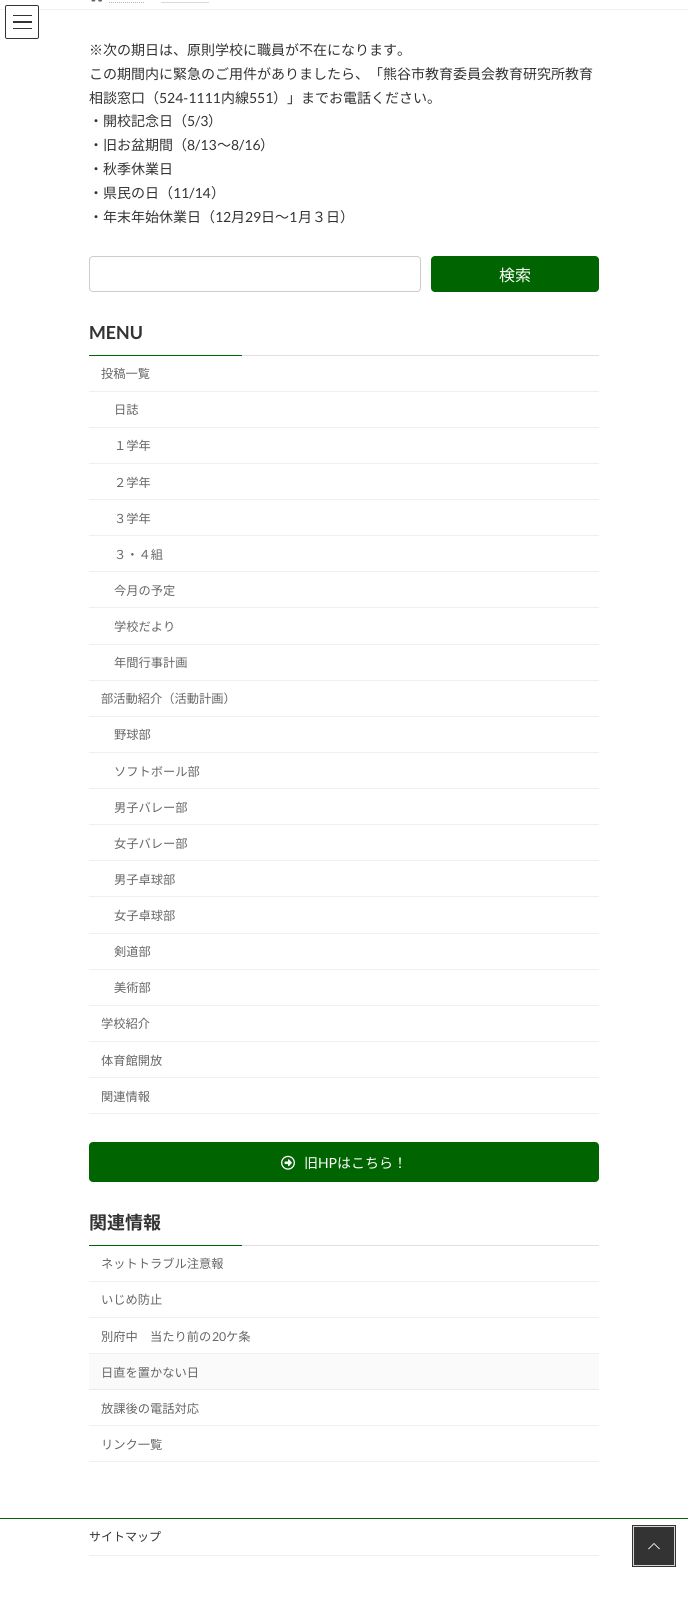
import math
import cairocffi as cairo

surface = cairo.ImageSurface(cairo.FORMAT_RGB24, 688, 1613)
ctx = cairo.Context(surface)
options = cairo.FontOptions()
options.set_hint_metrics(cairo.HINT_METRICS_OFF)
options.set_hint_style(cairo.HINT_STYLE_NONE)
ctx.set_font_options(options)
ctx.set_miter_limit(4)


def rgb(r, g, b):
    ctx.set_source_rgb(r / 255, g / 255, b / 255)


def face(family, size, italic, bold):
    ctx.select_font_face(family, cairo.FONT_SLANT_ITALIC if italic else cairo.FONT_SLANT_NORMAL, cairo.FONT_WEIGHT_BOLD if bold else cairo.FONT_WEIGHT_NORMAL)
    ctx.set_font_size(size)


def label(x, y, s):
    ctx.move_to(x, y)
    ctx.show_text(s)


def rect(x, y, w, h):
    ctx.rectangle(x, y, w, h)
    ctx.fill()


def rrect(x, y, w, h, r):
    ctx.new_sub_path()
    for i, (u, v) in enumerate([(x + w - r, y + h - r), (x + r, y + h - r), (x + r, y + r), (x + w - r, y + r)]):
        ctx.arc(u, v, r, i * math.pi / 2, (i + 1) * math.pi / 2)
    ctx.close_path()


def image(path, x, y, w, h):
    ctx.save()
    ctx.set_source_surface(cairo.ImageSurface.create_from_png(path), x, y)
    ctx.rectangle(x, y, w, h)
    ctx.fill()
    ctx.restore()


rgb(255, 255, 255)
ctx.paint()
rgb(240, 240, 240)
rect(0, 9, 688, 1)
image('image0.png', 91, 0, 11, 2)
ctx.new_path()
ctx.move_to(109, 2.5)
ctx.line_to(145, 2.5)
rgb(179, 179, 179)
ctx.set_line_width(1)
ctx.set_dash([1, 1])
ctx.stroke()
ctx.new_path()
ctx.move_to(161.5, 2.5)
ctx.line_to(209.5, 2.5)
ctx.stroke()
ctx.set_source_rgba(1, 1, 1, 0.8)
rrect(5, 5, 34, 34, 2)
ctx.fill()
rgb(51, 51, 51)
rect(13, 15, 19, 1)
rect(13, 21, 19, 2)
rect(13, 28, 19, 1)
rrect(5.5, 5.5, 33, 33, 1.5)
ctx.set_dash([])
ctx.stroke()
face('Noto Sans JP', 14, 0, 0)
label(89, 55, '※次の期日は、原則学校に職員が不在になります。')
label(89, 79, 'この期間内に緊急のご用件がありましたら、「熊谷市教育委員会教育研究所教育')
label(89, 103, '相談窓口（')
face('Lato', 14, 0, 0)
label(159, 103, '524-1111')
face('Noto Sans JP', 14, 0, 0)
label(221, 103, '内線')
face('Lato', 14, 0, 0)
label(249, 103, '551')
face('Noto Sans JP', 14, 0, 0)
label(273, 103, '）」までお電話ください。')
label(89, 126, '・開校記念日（')
face('Lato', 14, 0, 0)
label(187, 126, '5/3')
face('Noto Sans JP', 14, 0, 0)
label(208, 126, '）')
label(89, 150, '・旧お盆期間（')
face('Lato', 14, 0, 0)
label(187, 150, '8/13')
face('Noto Sans JP', 14, 0, 0)
label(217, 150, '～')
face('Lato', 14, 0, 0)
label(231, 150, '8/16')
face('Noto Sans JP', 14, 0, 0)
label(260, 150, '）')
label(89, 174, '・秋季休業日')
label(89, 198, '・県民の日（')
face('Lato', 14, 0, 0)
label(173, 198, '11/14')
face('Noto Sans JP', 14, 0, 0)
label(211, 198, '）')
label(89, 222, '・年末年始休業日（')
face('Lato', 14, 0, 0)
label(215, 222, '12')
face('Noto Sans JP', 14, 0, 0)
label(231, 222, '月')
face('Lato', 14, 0, 0)
label(245, 222, '29')
face('Noto Sans JP', 14, 0, 0)
label(261, 222, '日～')
face('Lato', 14, 0, 0)
label(289, 222, '1')
face('Noto Sans JP', 14, 0, 0)
label(298, 222, '月３日）')
rrect(89.5, 256.5, 331, 35, 3.5)
rgb(204, 204, 204)
ctx.stroke()
rgb(0, 100, 0)
rrect(431, 256, 168, 36, 4)
ctx.fill()
face('Noto Sans JP', 16, 0, 0)
rgb(255, 255, 255)
label(499, 281, '検索')
rgb(224, 224, 224)
rect(242, 355, 357, 1)
face('Lato', 18, 0, 1)
rgb(51, 51, 51)
label(89, 339, 'MENU')
rgb(0, 100, 0)
rect(89, 355, 153, 1)
rgb(240, 240, 240)
rect(89, 391, 510, 1)
face('Noto Sans JP', 12.25, 0, 0)
rgb(102, 102, 102)
label(101, 378, '投稿一覧')
rgb(240, 240, 240)
rect(89, 427, 510, 1)
rgb(102, 102, 102)
label(114, 414, '日誌')
rgb(240, 240, 240)
rect(89, 463, 510, 1)
rgb(102, 102, 102)
label(114, 450, '１学年')
rgb(240, 240, 240)
rect(89, 499, 510, 1)
rgb(102, 102, 102)
label(114, 487, '２学年')
rgb(240, 240, 240)
rect(89, 535, 510, 1)
rgb(102, 102, 102)
label(114, 523, '３学年')
rgb(240, 240, 240)
rect(89, 571, 510, 1)
rgb(102, 102, 102)
label(114, 559, '３・４組')
rgb(240, 240, 240)
rect(89, 607, 510, 1)
rgb(102, 102, 102)
label(114, 595, '今月の予定')
rgb(240, 240, 240)
rect(89, 644, 510, 1)
rgb(102, 102, 102)
label(114, 631, '学校だより')
rgb(240, 240, 240)
rect(89, 680, 510, 1)
rgb(102, 102, 102)
label(114, 667, '年間行事計画')
rgb(240, 240, 240)
rect(89, 716, 510, 1)
rgb(102, 102, 102)
label(101, 703, '部活動紹介（活動計画）')
rgb(240, 240, 240)
rect(89, 752, 510, 1)
rgb(102, 102, 102)
label(114, 739, '野球部')
rgb(240, 240, 240)
rect(89, 788, 510, 1)
rgb(102, 102, 102)
label(114, 776, 'ソフトボール部')
rgb(240, 240, 240)
rect(89, 824, 510, 1)
rgb(102, 102, 102)
label(114, 812, '男子バレー部')
rgb(240, 240, 240)
rect(89, 860, 510, 1)
rgb(102, 102, 102)
label(114, 848, '女子バレー部')
rgb(240, 240, 240)
rect(89, 896, 510, 1)
rgb(102, 102, 102)
label(114, 884, '男子卓球部')
rgb(240, 240, 240)
rect(89, 933, 510, 1)
rgb(102, 102, 102)
label(114, 920, '女子卓球部')
rgb(240, 240, 240)
rect(89, 969, 510, 1)
rgb(102, 102, 102)
label(114, 956, '剣道部')
rgb(240, 240, 240)
rect(89, 1005, 510, 1)
rgb(102, 102, 102)
label(114, 992, '美術部')
rgb(240, 240, 240)
rect(89, 1041, 510, 1)
rgb(102, 102, 102)
label(101, 1028, '学校紹介')
rgb(240, 240, 240)
rect(89, 1077, 510, 1)
rgb(102, 102, 102)
label(101, 1065, '体育館開放')
rgb(240, 240, 240)
rect(89, 1113, 510, 1)
rgb(102, 102, 102)
label(101, 1101, '関連情報')
rgb(0, 100, 0)
rrect(89, 1142, 510, 40, 4)
ctx.fill()
image('image1.png', 281, 1155, 14, 15)
face('Noto Sans JP', 14, 0, 0)
rgb(255, 255, 255)
label(304, 1168, '旧')
face('Lato', 14, 0, 0)
label(318, 1168, 'HP')
face('Noto Sans JP', 14, 0, 0)
label(337, 1168, 'はこちら！')
rgb(224, 224, 224)
rect(242, 1245, 357, 1)
face('Noto Sans JP', 18, 0, 1)
rgb(51, 51, 51)
label(89, 1229, '関連情報')
rgb(0, 100, 0)
rect(89, 1245, 153, 1)
rgb(240, 240, 240)
rect(89, 1281, 510, 1)
face('Noto Sans JP', 12.25, 0, 0)
rgb(102, 102, 102)
label(101, 1268, 'ネットトラブル注意報')
rgb(240, 240, 240)
rect(89, 1317, 510, 1)
rgb(102, 102, 102)
label(101, 1304, 'いじめ防止')
rgb(240, 240, 240)
rect(89, 1353, 510, 1)
rgb(102, 102, 102)
label(101, 1341, '別府中　当たり前の')
face('Lato', 12.25, 0, 0)
label(212, 1341, '20')
face('Noto Sans JP', 12.25, 0, 0)
label(226, 1341, 'ケ条')
rgb(250, 250, 250)
rect(89, 1354, 510, 35)
rgb(235, 235, 235)
rect(89, 1389, 510, 1)
rgb(102, 102, 102)
label(101, 1377, '日直を置かない日')
rgb(240, 240, 240)
rect(89, 1425, 510, 1)
rgb(102, 102, 102)
label(101, 1413, '放課後の電話対応')
rgb(240, 240, 240)
rect(89, 1461, 510, 1)
rgb(102, 102, 102)
label(101, 1449, 'リンク一覧')
rgb(0, 100, 0)
rect(0, 1518, 688, 1)
rgb(240, 240, 240)
rect(89, 1555, 510, 1)
face('Noto Sans JP', 12, 0, 0)
rgb(51, 51, 51)
label(89, 1541, 'サイトマップ')
ctx.rectangle(633, 1526, 42, 40)
ctx.set_line_width(2)
ctx.stroke()
ctx.rectangle(633.5, 1526.5, 41, 39)
rgb(214, 214, 214)
ctx.set_line_width(1)
ctx.stroke()
rgb(51, 51, 51)
rect(634, 1527, 40, 38)
image('image2.png', 648, 1543, 12, 7)
surface.write_to_png('render.png')
